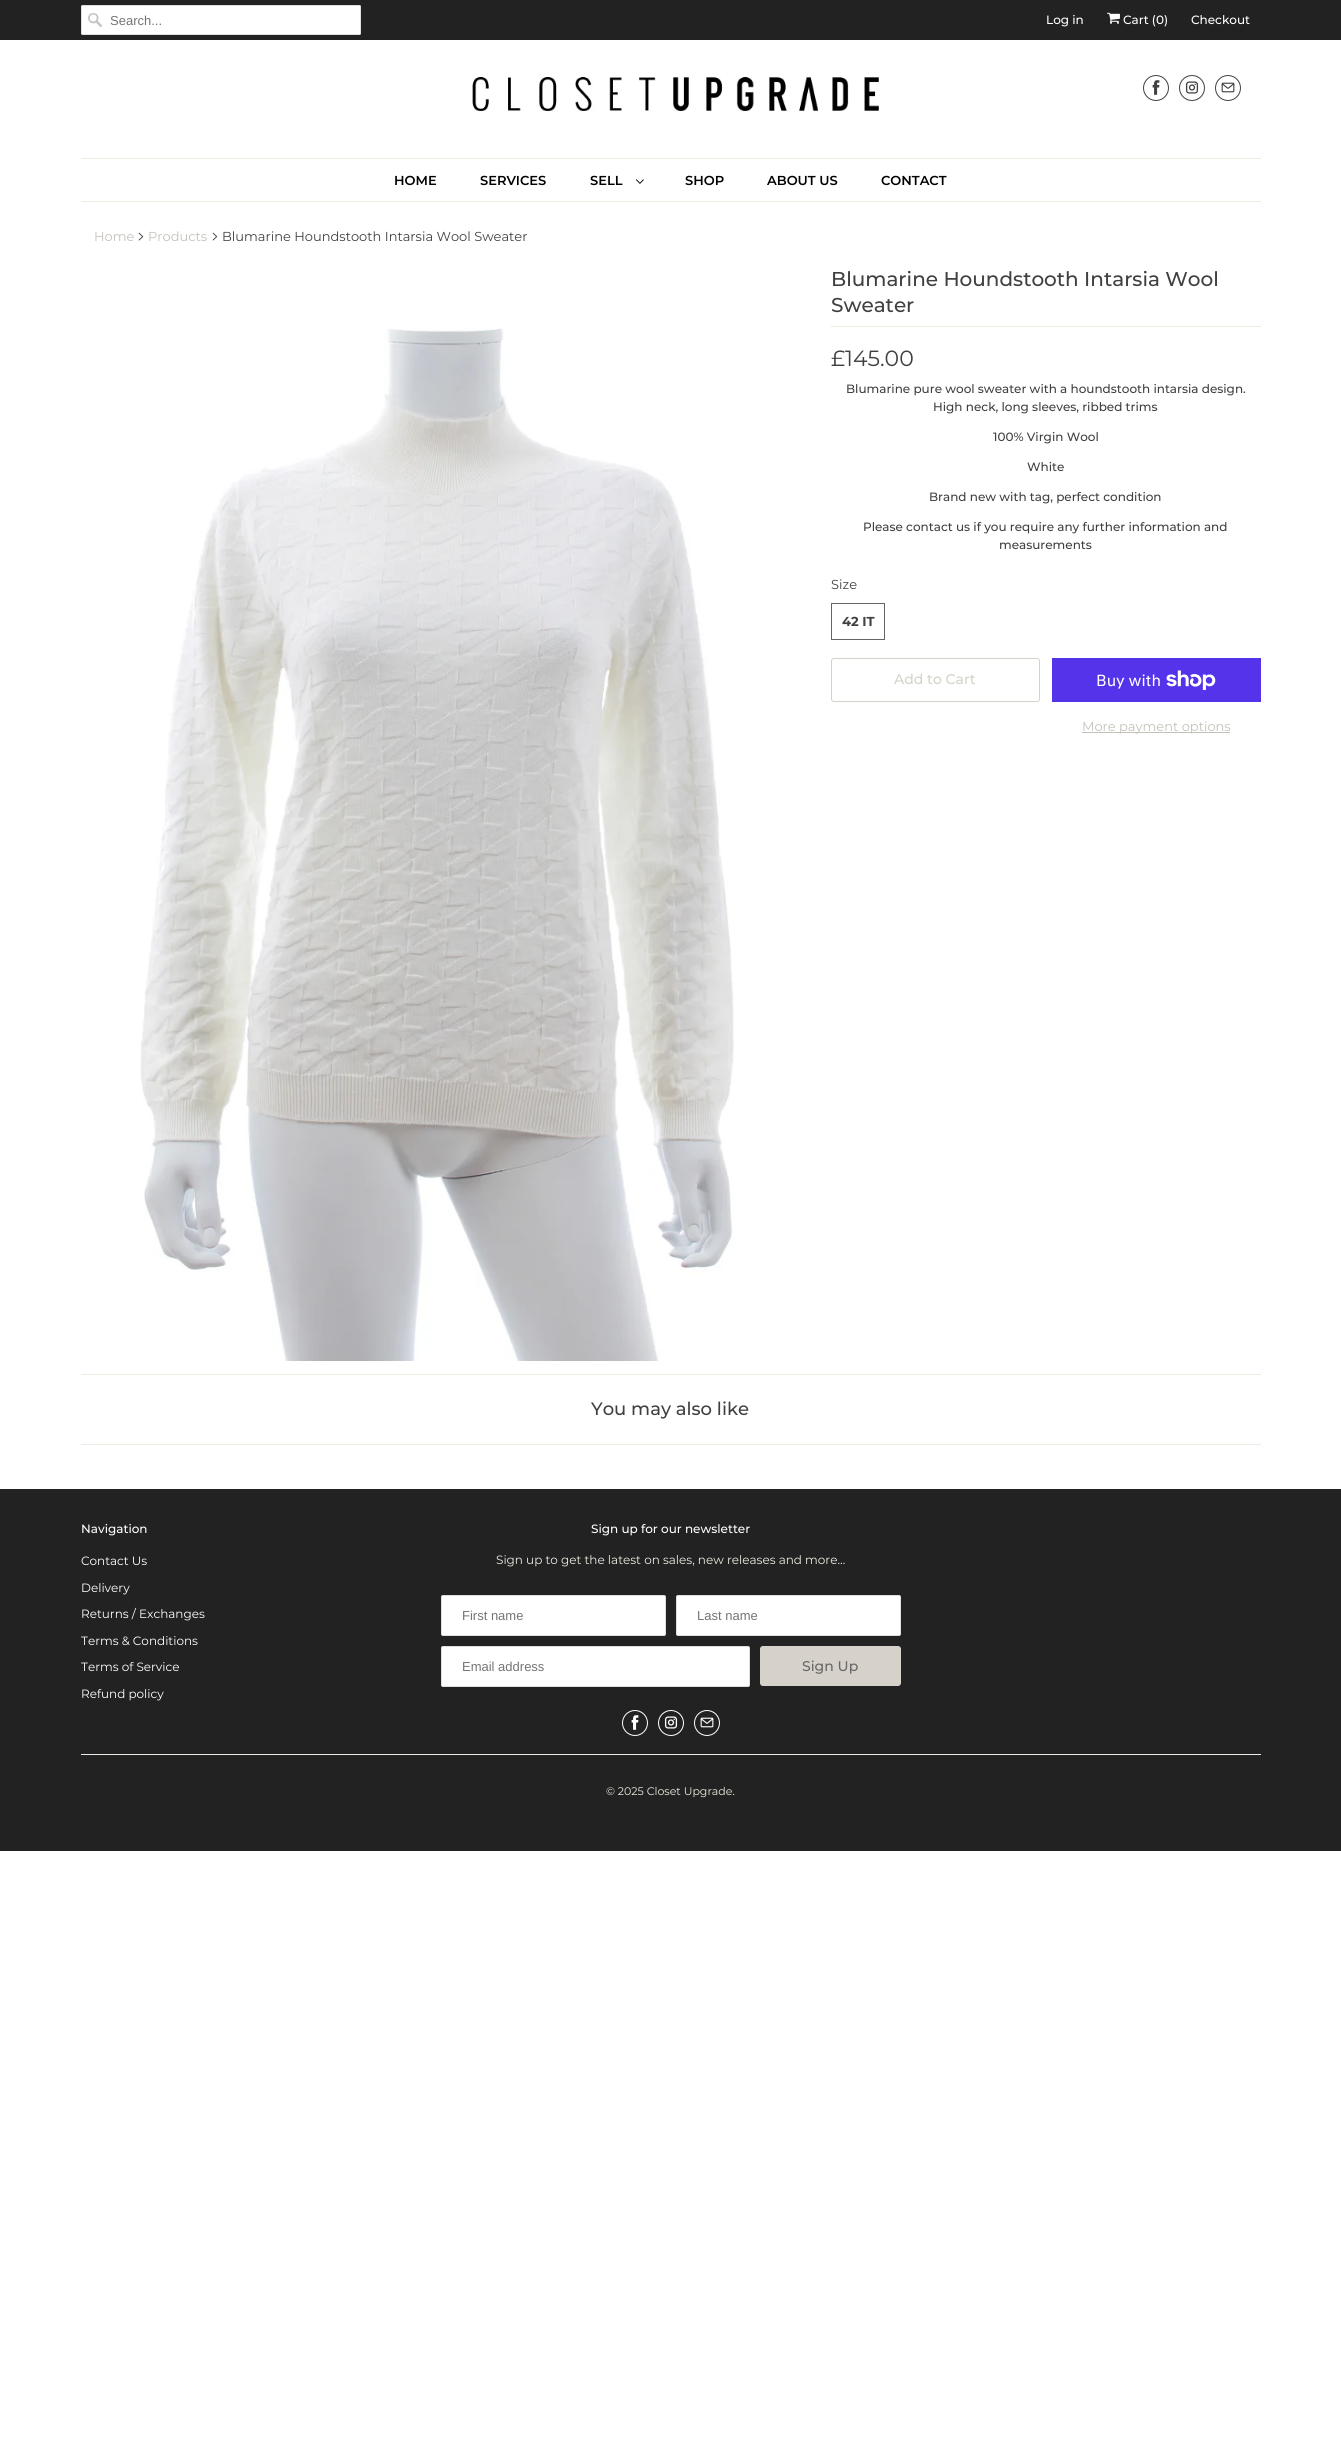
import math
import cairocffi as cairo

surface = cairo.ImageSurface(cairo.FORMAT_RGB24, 1341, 2452)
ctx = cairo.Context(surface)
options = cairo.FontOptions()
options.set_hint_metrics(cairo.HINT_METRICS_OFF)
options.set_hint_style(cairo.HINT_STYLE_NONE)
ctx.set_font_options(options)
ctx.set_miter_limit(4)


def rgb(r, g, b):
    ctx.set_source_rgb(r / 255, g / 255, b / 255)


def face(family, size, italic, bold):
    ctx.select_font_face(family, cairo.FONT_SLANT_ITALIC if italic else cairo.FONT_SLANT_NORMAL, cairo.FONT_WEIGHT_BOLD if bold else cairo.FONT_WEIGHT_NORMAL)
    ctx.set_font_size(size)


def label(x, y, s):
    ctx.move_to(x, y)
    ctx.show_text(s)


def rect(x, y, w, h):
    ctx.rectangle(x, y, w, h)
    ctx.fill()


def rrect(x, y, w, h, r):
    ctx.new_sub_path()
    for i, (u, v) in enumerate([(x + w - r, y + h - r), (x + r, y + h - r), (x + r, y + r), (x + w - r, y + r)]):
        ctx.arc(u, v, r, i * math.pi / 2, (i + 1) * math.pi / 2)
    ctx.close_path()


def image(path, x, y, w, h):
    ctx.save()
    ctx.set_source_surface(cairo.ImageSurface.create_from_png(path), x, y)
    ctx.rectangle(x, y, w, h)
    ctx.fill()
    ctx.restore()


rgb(255, 255, 255)
ctx.paint()
rgb(34, 34, 34)
rect(0, 0, 1341, 40)
rgb(255, 255, 255)
rrect(81, 5, 280, 30, 2)
ctx.fill()
image('image0.png', 88, 13, 14, 14)
rrect(81.5, 5.5, 279, 29, 1.5)
rgb(223, 223, 223)
ctx.set_line_width(1)
ctx.stroke()
face('Liberation Sans', 13, 0, 0)
rgb(117, 117, 117)
label(110, 25, 'Search...')
face('Montserrat Medium', 12, 0, 0)
rgb(255, 255, 255)
label(1046, 24, 'Log in')
image('image1.png', 1107, 12, 13, 12)
label(1123, 24, 'Cart (0)')
label(1191, 24, 'Checkout')
image('image2.png', 472, 77, 408, 35)
ctx.arc(1156, 88, 12.5, 0, 2 * math.pi)
rgb(64, 64, 64)
ctx.stroke()
image('image3.png', 1152, 80, 8, 15)
ctx.arc(1192, 88, 12.5, 0, 2 * math.pi)
ctx.stroke()
image('image4.png', 1185, 81, 14, 13)
ctx.arc(1228, 88, 12.5, 0, 2 * math.pi)
ctx.stroke()
image('image5.png', 1221, 82, 14, 11)
rgb(239, 235, 226)
rect(81, 158, 1180, 1)
rect(81, 201, 1180, 1)
face('Montserrat SemiBold', 13, 0, 0)
rgb(0, 0, 0)
label(394, 185, 'HOME')
label(480, 185, 'SERVICES')
label(590, 185, 'SELL')
image('image6.png', 636, 179, 8, 5)
label(685, 185, 'SHOP')
label(767, 185, 'ABOUT US')
label(881, 185, 'CONTACT')
face('Montserrat', 13, 0, 0)
rgb(196, 193, 185)
label(94, 241, 'Home')
image('image7.png', 138, 232, 6, 9)
label(148, 241, 'Products')
image('image7.png', 212, 232, 6, 9)
rgb(64, 64, 64)
label(222, 241, 'Blumarine Houndstooth Intarsia Wool Sweater')
image('image8.png', 140, 328, 594, 1033)
rgb(239, 235, 226)
rect(831, 326, 430, 1)
face('Montserrat Medium', 20, 0, 0)
rgb(64, 64, 64)
label(831, 286, 'Blumarine Houndstooth Intarsia Wool')
label(831, 312, 'Sweater')
face('Montserrat', 22, 0, 0)
label(831, 366, '£145.00')
face('Montserrat Medium', 12, 0, 0)
label(846, 393, 'Blumarine pure wool sweater with a houndstooth intarsia design.')
label(933, 411, 'High neck, long sleeves, ribbed trims')
label(993, 441, '100% Virgin Wool')
label(1027, 471, 'White')
label(929, 501, 'Brand new with tag, perfect condition')
label(863, 531, 'Please contact us if you require any further information and')
label(999, 549, 'measurements')
face('Montserrat', 13, 0, 0)
label(831, 589, 'Size')
ctx.rectangle(831.5, 603.5, 53, 36)
rgb(102, 102, 102)
ctx.stroke()
face('Montserrat', 13, 0, 1)
rgb(64, 64, 64)
label(842, 626, '42 IT')
rrect(831.5, 658.5, 208, 43, 2.5)
rgb(214, 210, 202)
ctx.stroke()
face('Montserrat Medium', 14, 0, 0)
label(894, 684, 'Add to Cart')
rgb(84, 51, 235)
rect(1052, 658, 209, 44)
face('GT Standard', 16, 0, 0)
rgb(255, 255, 255)
label(1096, 686, 'Buy with')
image('image9.png', 1166, 670, 50, 20)
rgb(196, 193, 185)
rect(1082, 732, 148, 1)
face('Montserrat', 13, 0, 0)
label(1082, 731, 'More payment options')
rgb(239, 235, 226)
rect(81, 1374, 1180, 1)
rect(81, 1444, 1180, 1)
face('Montserrat Medium', 18, 0, 0)
rgb(64, 64, 64)
label(591, 1415, 'You may also like')
rgb(34, 34, 34)
rect(0, 1489, 1341, 362)
face('Montserrat Medium', 12, 0, 0)
rgb(255, 255, 255)
label(81, 1533, 'Navigation')
face('Montserrat', 12, 0, 0)
label(81, 1565, 'Contact Us')
label(81, 1592, 'Delivery')
label(81, 1618, 'Returns / Exchanges')
label(81, 1645, 'Terms & Conditions')
label(81, 1671, 'Terms of Service')
label(81, 1698, 'Refund policy')
face('Montserrat Medium', 12, 0, 0)
label(591, 1533, 'Sign up for our newsletter')
face('Montserrat', 12, 0, 0)
rgb(239, 235, 226)
label(496, 1564, 'Sign up to get the latest on sales, new releases and more…')
rgb(255, 255, 255)
rrect(441.5, 1595.5, 224, 40, 1.5)
ctx.fill_preserve()
rgb(223, 223, 223)
ctx.stroke()
face('Liberation Sans', 13, 0, 0)
rgb(117, 117, 117)
label(462, 1620, 'First name')
rgb(255, 255, 255)
rrect(676.5, 1595.5, 224, 40, 1.5)
ctx.fill_preserve()
rgb(223, 223, 223)
ctx.stroke()
rgb(117, 117, 117)
label(697, 1620, 'Last name')
rgb(255, 255, 255)
rrect(441.5, 1646.5, 308, 40, 1.5)
ctx.fill_preserve()
rgb(223, 223, 223)
ctx.stroke()
rgb(117, 117, 117)
label(462, 1671, 'Email address')
rgb(214, 210, 202)
rrect(760.5, 1646.5, 140, 39, 2.5)
ctx.fill_preserve()
ctx.stroke()
face('Montserrat Medium', 14, 0, 0)
rgb(102, 102, 102)
label(802, 1671, 'Sign Up')
ctx.new_path()
ctx.arc(635, 1723, 12.5, 0, 2 * math.pi)
rgb(255, 255, 255)
ctx.stroke()
image('image10.png', 631, 1715, 8, 15)
ctx.arc(671, 1723, 12.5, 0, 2 * math.pi)
ctx.stroke()
image('image11.png', 664, 1716, 14, 13)
ctx.arc(707, 1723, 12.5, 0, 2 * math.pi)
ctx.stroke()
image('image12.png', 700, 1717, 14, 11)
rgb(239, 235, 226)
rect(81, 1754, 1180, 1)
face('Montserrat', 11, 0, 0)
label(606, 1795, '© 2025 Closet Upgrade.')
surface.write_to_png('render.png')
